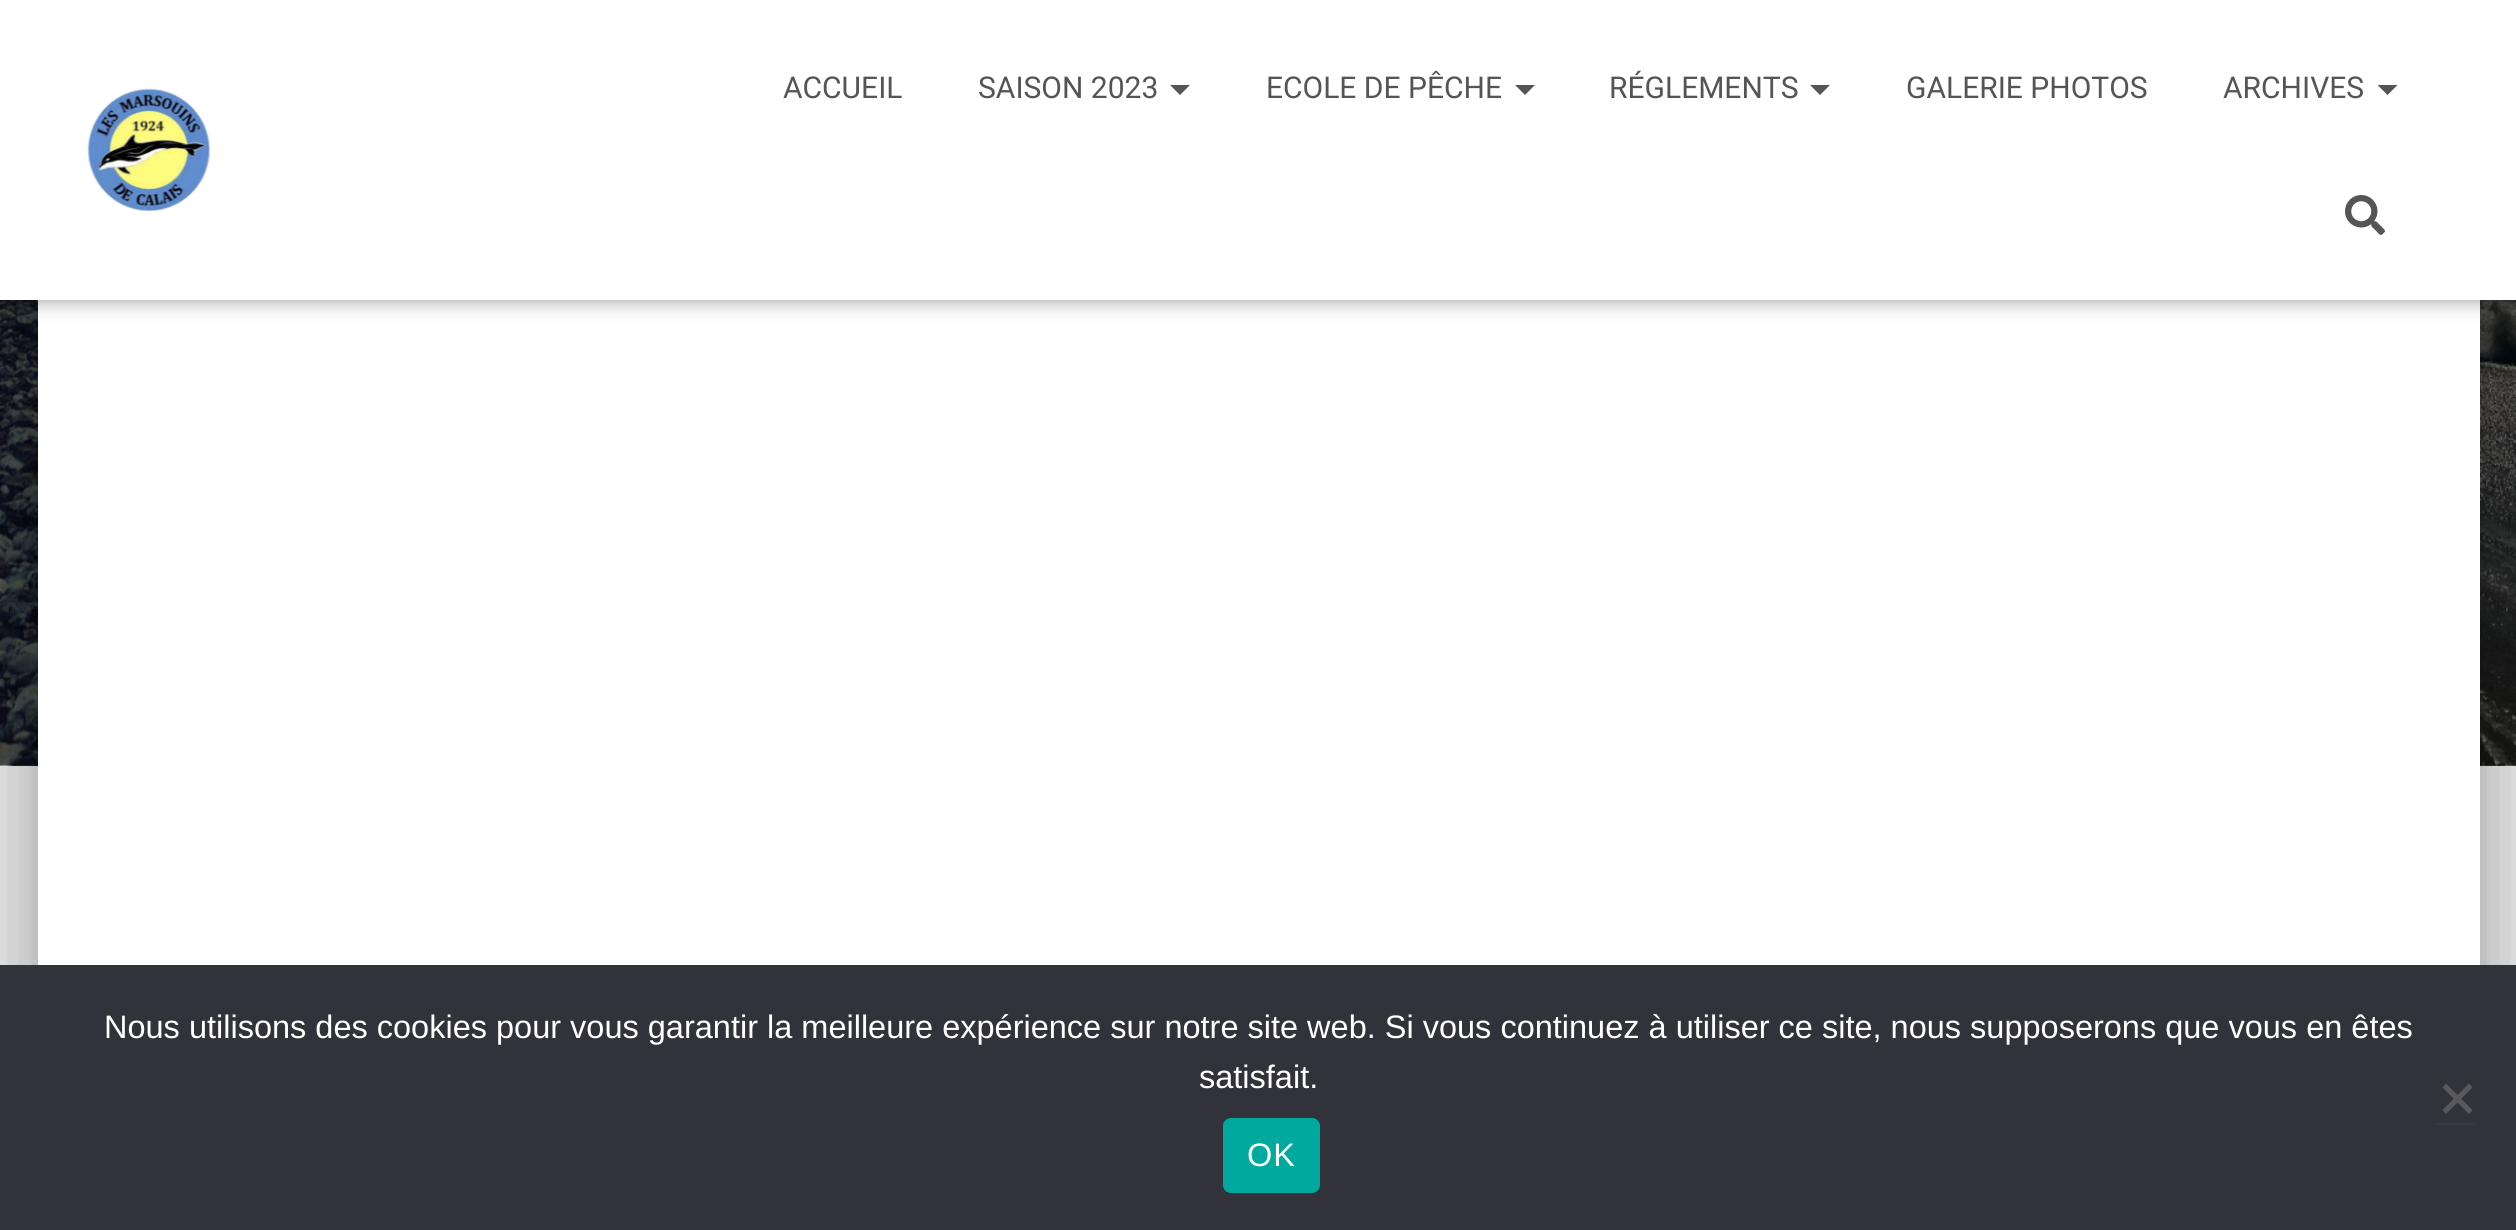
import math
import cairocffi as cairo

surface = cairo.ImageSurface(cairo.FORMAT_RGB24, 2516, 1230)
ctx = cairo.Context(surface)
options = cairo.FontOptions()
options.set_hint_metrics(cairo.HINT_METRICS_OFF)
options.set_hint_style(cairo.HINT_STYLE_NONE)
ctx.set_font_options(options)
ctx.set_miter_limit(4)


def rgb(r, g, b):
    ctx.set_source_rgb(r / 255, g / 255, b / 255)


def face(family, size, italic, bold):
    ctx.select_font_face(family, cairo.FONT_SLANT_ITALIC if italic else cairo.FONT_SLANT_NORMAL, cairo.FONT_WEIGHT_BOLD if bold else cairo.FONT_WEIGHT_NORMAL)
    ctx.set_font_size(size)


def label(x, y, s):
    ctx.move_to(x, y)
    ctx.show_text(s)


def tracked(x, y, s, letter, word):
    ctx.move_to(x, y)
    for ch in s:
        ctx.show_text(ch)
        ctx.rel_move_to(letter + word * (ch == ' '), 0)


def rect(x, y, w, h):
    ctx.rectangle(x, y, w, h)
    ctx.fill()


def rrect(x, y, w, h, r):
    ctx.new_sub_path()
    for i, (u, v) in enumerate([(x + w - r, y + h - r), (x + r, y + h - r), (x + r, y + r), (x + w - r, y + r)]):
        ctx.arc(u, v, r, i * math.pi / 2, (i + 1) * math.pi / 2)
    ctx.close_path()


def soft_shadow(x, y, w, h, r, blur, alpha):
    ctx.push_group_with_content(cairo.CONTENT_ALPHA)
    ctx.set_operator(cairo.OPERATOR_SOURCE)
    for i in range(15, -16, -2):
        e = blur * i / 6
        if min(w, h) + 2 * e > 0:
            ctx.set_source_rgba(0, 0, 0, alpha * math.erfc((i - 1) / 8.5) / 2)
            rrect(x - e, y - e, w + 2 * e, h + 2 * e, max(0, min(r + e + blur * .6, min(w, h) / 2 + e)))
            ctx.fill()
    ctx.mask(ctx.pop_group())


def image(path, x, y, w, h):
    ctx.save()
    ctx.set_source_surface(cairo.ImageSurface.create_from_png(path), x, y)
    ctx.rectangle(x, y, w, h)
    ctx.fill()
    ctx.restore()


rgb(229, 229, 229)
ctx.paint()
image('image2.png', 0, 300, 2516, 466)
rgb(0, 0, 0)
soft_shadow(50, 310, 2418, 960, 2.5, 12.5, 0.2)
soft_shadow(25, 280, 2468, 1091, 28, 37.5, 0.12)
soft_shadow(33, 313, 2452, 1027, 20, 30, 0.14)
rgb(255, 255, 255)
rect(38, 300, 2442, 665)
rgb(0, 0, 0)
soft_shadow(5, 15, 2508, 290, 0, 6, 0.1)
soft_shadow(0, 3, 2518, 300, 0, 12.5, 0.12)
soft_shadow(15, 18, 2488, 270, 0, 12.5, 0.42)
rgb(255, 255, 255)
rect(0, 0, 2516, 300)
face('Roboto', 30, 0, 0)
rgb(85, 85, 85)
label(783, 98, 'ACCUEIL')
label(978, 98, 'SAISON 2023')
ctx.new_path()
ctx.move_to(1170, 85)
ctx.line_to(1190, 85)
ctx.line_to(1180, 95)
ctx.close_path()
ctx.fill()
label(1266, 98, 'ECOLE DE PÊCHE')
ctx.new_path()
ctx.move_to(1515, 85)
ctx.line_to(1535, 85)
ctx.line_to(1525, 95)
ctx.close_path()
ctx.fill()
label(1609, 98, 'RÉGLEMENTS')
ctx.new_path()
ctx.move_to(1810, 85)
ctx.line_to(1830, 85)
ctx.line_to(1820, 95)
ctx.close_path()
ctx.fill()
label(1906, 98, 'GALERIE PHOTOS')
label(2223, 98, 'ARCHIVES')
ctx.new_path()
ctx.move_to(2377.5, 85)
ctx.line_to(2397.5, 85)
ctx.line_to(2387.5, 95)
ctx.close_path()
ctx.fill()
image('image0.png', 2345, 195, 40, 40)
image('image1.png', 87, 88, 123, 124)
rgb(50, 50, 58)
rect(0, 965, 2516, 265)
face('Liberation Sans', 32.5, 0, 0)
rgb(255, 255, 255)
label(104, 1038, 'Nous utilisons des cookies pour vous garantir la meilleure expérience sur notre site web. Si vous continuez à utiliser ce site, nous supposerons que vous en êtes')
label(1199, 1088, 'satisfait.')
ctx.save()
ctx.set_fill_rule(cairo.FILL_RULE_EVEN_ODD)
ctx.new_path()
ctx.move_to(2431, 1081)
ctx.line_to(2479, 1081)
ctx.line_to(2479, 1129)
ctx.line_to(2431, 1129)
ctx.close_path()
ctx.move_to(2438, 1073)
ctx.line_to(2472, 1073)
ctx.curve_to(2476.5, 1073, 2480, 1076.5, 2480, 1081)
ctx.line_to(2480, 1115)
ctx.curve_to(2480, 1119.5, 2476.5, 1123, 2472, 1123)
ctx.line_to(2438, 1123)
ctx.curve_to(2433.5, 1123, 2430, 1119.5, 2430, 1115)
ctx.line_to(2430, 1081)
ctx.curve_to(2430, 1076.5, 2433.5, 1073, 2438, 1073)
ctx.close_path()
ctx.clip()
rgb(51, 101, 139)
soft_shadow(2435, 1085, 40, 40, 2.5, 1, 0.2)
ctx.restore()
rgb(89, 89, 93)
ctx.new_path()
ctx.move_to(2469, 1083.5)
ctx.line_to(2472.5, 1087.5)
ctx.line_to(2446, 1114)
ctx.line_to(2442.5, 1110)
ctx.close_path()
ctx.fill()
ctx.new_path()
ctx.move_to(2442.5, 1087.5)
ctx.line_to(2446, 1083.5)
ctx.line_to(2472.5, 1110)
ctx.line_to(2469, 1114)
ctx.close_path()
ctx.fill()
rgb(0, 169, 157)
rrect(1223, 1118, 97, 75, 8)
ctx.fill()
rgb(255, 255, 255)
tracked(1247, 1166, 'OK', 1, 0)
surface.write_to_png('render.png')
